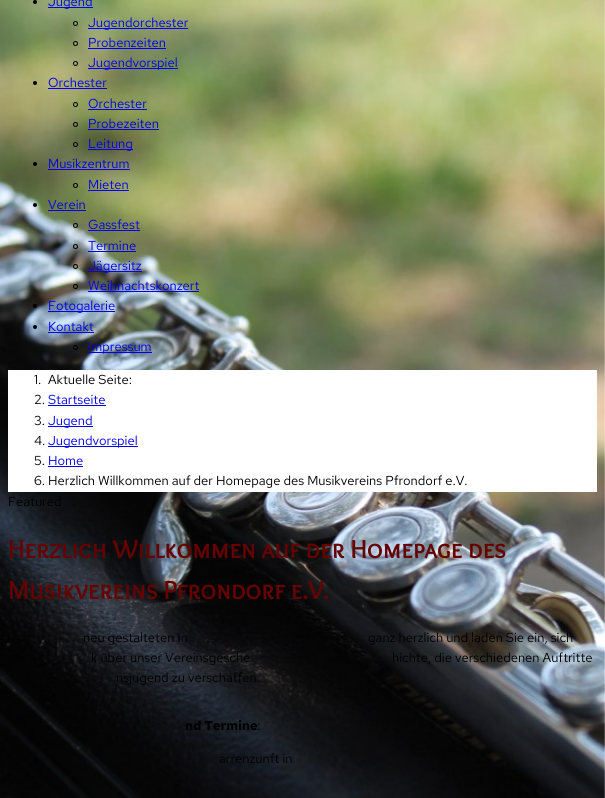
import math
import cairocffi as cairo

surface = cairo.ImageSurface(cairo.FORMAT_RGB24, 605, 798)
ctx = cairo.Context(surface)
options = cairo.FontOptions()
options.set_hint_metrics(cairo.HINT_METRICS_OFF)
options.set_hint_style(cairo.HINT_STYLE_NONE)
ctx.set_font_options(options)
ctx.set_miter_limit(4)


def rgb(r, g, b):
    ctx.set_source_rgb(r / 255, g / 255, b / 255)


def face(family, size, italic, bold):
    ctx.select_font_face(family, cairo.FONT_SLANT_ITALIC if italic else cairo.FONT_SLANT_NORMAL, cairo.FONT_WEIGHT_BOLD if bold else cairo.FONT_WEIGHT_NORMAL)
    ctx.set_font_size(size)


def label(x, y, s):
    ctx.move_to(x, y)
    ctx.show_text(s)


def rect(x, y, w, h):
    ctx.rectangle(x, y, w, h)
    ctx.fill()


def rrect(x, y, w, h, r):
    ctx.new_sub_path()
    for i, (u, v) in enumerate([(x + w - r, y + h - r), (x + r, y + h - r), (x + r, y + r), (x + w - r, y + r)]):
        ctx.arc(u, v, r, i * math.pi / 2, (i + 1) * math.pi / 2)
    ctx.close_path()


def image(path, x, y, w, h):
    ctx.save()
    ctx.set_source_surface(cairo.ImageSurface.create_from_png(path), x, y)
    ctx.rectangle(x, y, w, h)
    ctx.fill()
    ctx.restore()


rgb(255, 255, 255)
ctx.paint()
image('image0.png', 0, 0, 605, 798)
rgb(0, 0, 0)
ctx.arc(35, 2, 2, 0, 2 * math.pi)
ctx.fill()
rgb(0, 0, 238)
rect(48, 7, 45, 1)
face('Red Hat Text', 13, 0, 0)
label(48, 6, 'Jugend')
ctx.new_path()
ctx.arc(75.5, 23.5, 2, 0, 2 * math.pi)
rgb(0, 0, 0)
ctx.set_line_width(1)
ctx.stroke()
rgb(0, 0, 238)
rect(88, 28, 100, 1)
label(88, 27, 'Jugendorchester')
ctx.new_path()
ctx.arc(75.5, 43.5, 2, 0, 2 * math.pi)
rgb(0, 0, 0)
ctx.stroke()
rgb(0, 0, 238)
label(88, 47, 'Probenzeiten')
rect(88, 48, 78, 1)
ctx.new_path()
ctx.arc(75.5, 63.5, 2, 0, 2 * math.pi)
rgb(0, 0, 0)
ctx.stroke()
rgb(0, 0, 238)
rect(88, 68, 90, 1)
label(88, 67, 'Jugendvorspiel')
rgb(0, 0, 0)
ctx.new_path()
ctx.arc(35, 83, 2, 0, 2 * math.pi)
ctx.fill()
rgb(0, 0, 238)
label(48, 87, 'Orchester')
rect(48, 88, 59, 1)
ctx.new_path()
ctx.arc(75.5, 104.5, 2, 0, 2 * math.pi)
rgb(0, 0, 0)
ctx.stroke()
rgb(0, 0, 238)
label(88, 108, 'Orchester')
rect(88, 109, 59, 1)
ctx.new_path()
ctx.arc(75.5, 124.5, 2, 0, 2 * math.pi)
rgb(0, 0, 0)
ctx.stroke()
rgb(0, 0, 238)
label(88, 128, 'Probezeiten')
rect(88, 129, 71, 1)
ctx.new_path()
ctx.arc(75.5, 144.5, 2, 0, 2 * math.pi)
rgb(0, 0, 0)
ctx.stroke()
rgb(0, 0, 238)
rect(88, 149, 45, 1)
label(88, 148, 'Leitung')
rgb(0, 0, 0)
ctx.new_path()
ctx.arc(35, 164, 2, 0, 2 * math.pi)
ctx.fill()
rgb(0, 0, 238)
label(48, 168, 'Musikzentrum')
rect(48, 169, 82, 1)
ctx.new_path()
ctx.arc(75.5, 185.5, 2, 0, 2 * math.pi)
rgb(0, 0, 0)
ctx.stroke()
rgb(0, 0, 238)
label(88, 189, 'Mieten')
rect(88, 190, 41, 1)
rgb(0, 0, 0)
ctx.new_path()
ctx.arc(35, 205, 2, 0, 2 * math.pi)
ctx.fill()
rgb(0, 0, 238)
label(48, 209, 'Verein')
rect(48, 210, 38, 1)
ctx.new_path()
ctx.arc(75.5, 225.5, 2, 0, 2 * math.pi)
rgb(0, 0, 0)
ctx.stroke()
rgb(0, 0, 238)
label(88, 229, 'Gassfest')
rect(88, 230, 52, 1)
ctx.new_path()
ctx.arc(75.5, 246.5, 2, 0, 2 * math.pi)
rgb(0, 0, 0)
ctx.stroke()
rgb(0, 0, 238)
label(88, 250, 'Termine')
rect(88, 251, 48, 1)
ctx.new_path()
ctx.arc(75.5, 266.5, 2, 0, 2 * math.pi)
rgb(0, 0, 0)
ctx.stroke()
rgb(0, 0, 238)
rect(88, 271, 54, 1)
label(88, 270, 'Jägersitz')
ctx.new_path()
ctx.arc(75.5, 286.5, 2, 0, 2 * math.pi)
rgb(0, 0, 0)
ctx.stroke()
rgb(0, 0, 238)
label(88, 290, 'Weihnachtskonzert')
rect(88, 291, 111, 1)
rgb(0, 0, 0)
ctx.new_path()
ctx.arc(35, 306, 2, 0, 2 * math.pi)
ctx.fill()
rgb(0, 0, 238)
rect(48, 311, 67, 1)
label(48, 310, 'Fotogalerie')
rgb(0, 0, 0)
ctx.new_path()
ctx.arc(35, 327, 2, 0, 2 * math.pi)
ctx.fill()
rgb(0, 0, 238)
label(48, 331, 'Kontakt')
rect(48, 332, 46, 1)
ctx.new_path()
ctx.arc(75.5, 347.5, 2, 0, 2 * math.pi)
rgb(0, 0, 0)
ctx.stroke()
rgb(0, 0, 238)
rect(88, 352, 64, 1)
label(88, 351, 'Impressum')
rgb(255, 255, 255)
rect(8, 370, 589, 122)
rgb(0, 0, 0)
label(34, 384, '1.')
label(48, 384, 'Aktuelle Seite:')
label(34, 404, '2.')
rgb(0, 0, 238)
label(48, 404, 'Startseite')
rect(48, 405, 58, 1)
rgb(0, 0, 0)
label(34, 425, '3.')
rgb(0, 0, 238)
rect(48, 426, 45, 1)
label(48, 425, 'Jugend')
rgb(0, 0, 0)
label(34, 445, '4.')
rgb(0, 0, 238)
rect(48, 446, 90, 1)
label(48, 445, 'Jugendvorspiel')
rgb(0, 0, 0)
label(34, 465, '5.')
rgb(0, 0, 238)
label(48, 465, 'Home')
rect(48, 466, 35, 1)
rgb(0, 0, 0)
label(34, 485, '6. Herzlich Willkommen auf der Homepage des Musikvereins Pfrondorf e.V.')
label(8, 506, 'Featured')
face('Overlock SC', 26, 0, 1)
rgb(101, 2, 0)
label(8, 558, 'Herzlich Willkommen auf der Homepage des')
label(8, 599, 'Musikvereins Pfrondorf e.V.')
face('Red Hat Text', 13, 0, 0)
rgb(0, 0, 0)
label(83, 642, 'neu gestalteten In')
label(368, 642, 'ganz herzlich und laden Sie ein, sich')
label(91, 662, 'k über unser Vereinsgesche')
label(392, 662, 'hichte, die verschiedenen Auftritte')
label(116, 682, 'nsjugend zu verschaffen.')
face('Red Hat Text', 13, 0, 1)
label(185, 730, 'nd Termine')
face('Red Hat Text', 13, 0, 0)
label(257, 730, ':')
ctx.new_path()
ctx.arc(36, 759, 2, 0, 2 * math.pi)
ctx.fill()
label(219, 763, 'arrenzunft in')
rrect(34, 797, 4, 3, 2)
ctx.fill()
surface.write_to_png('render.png')
